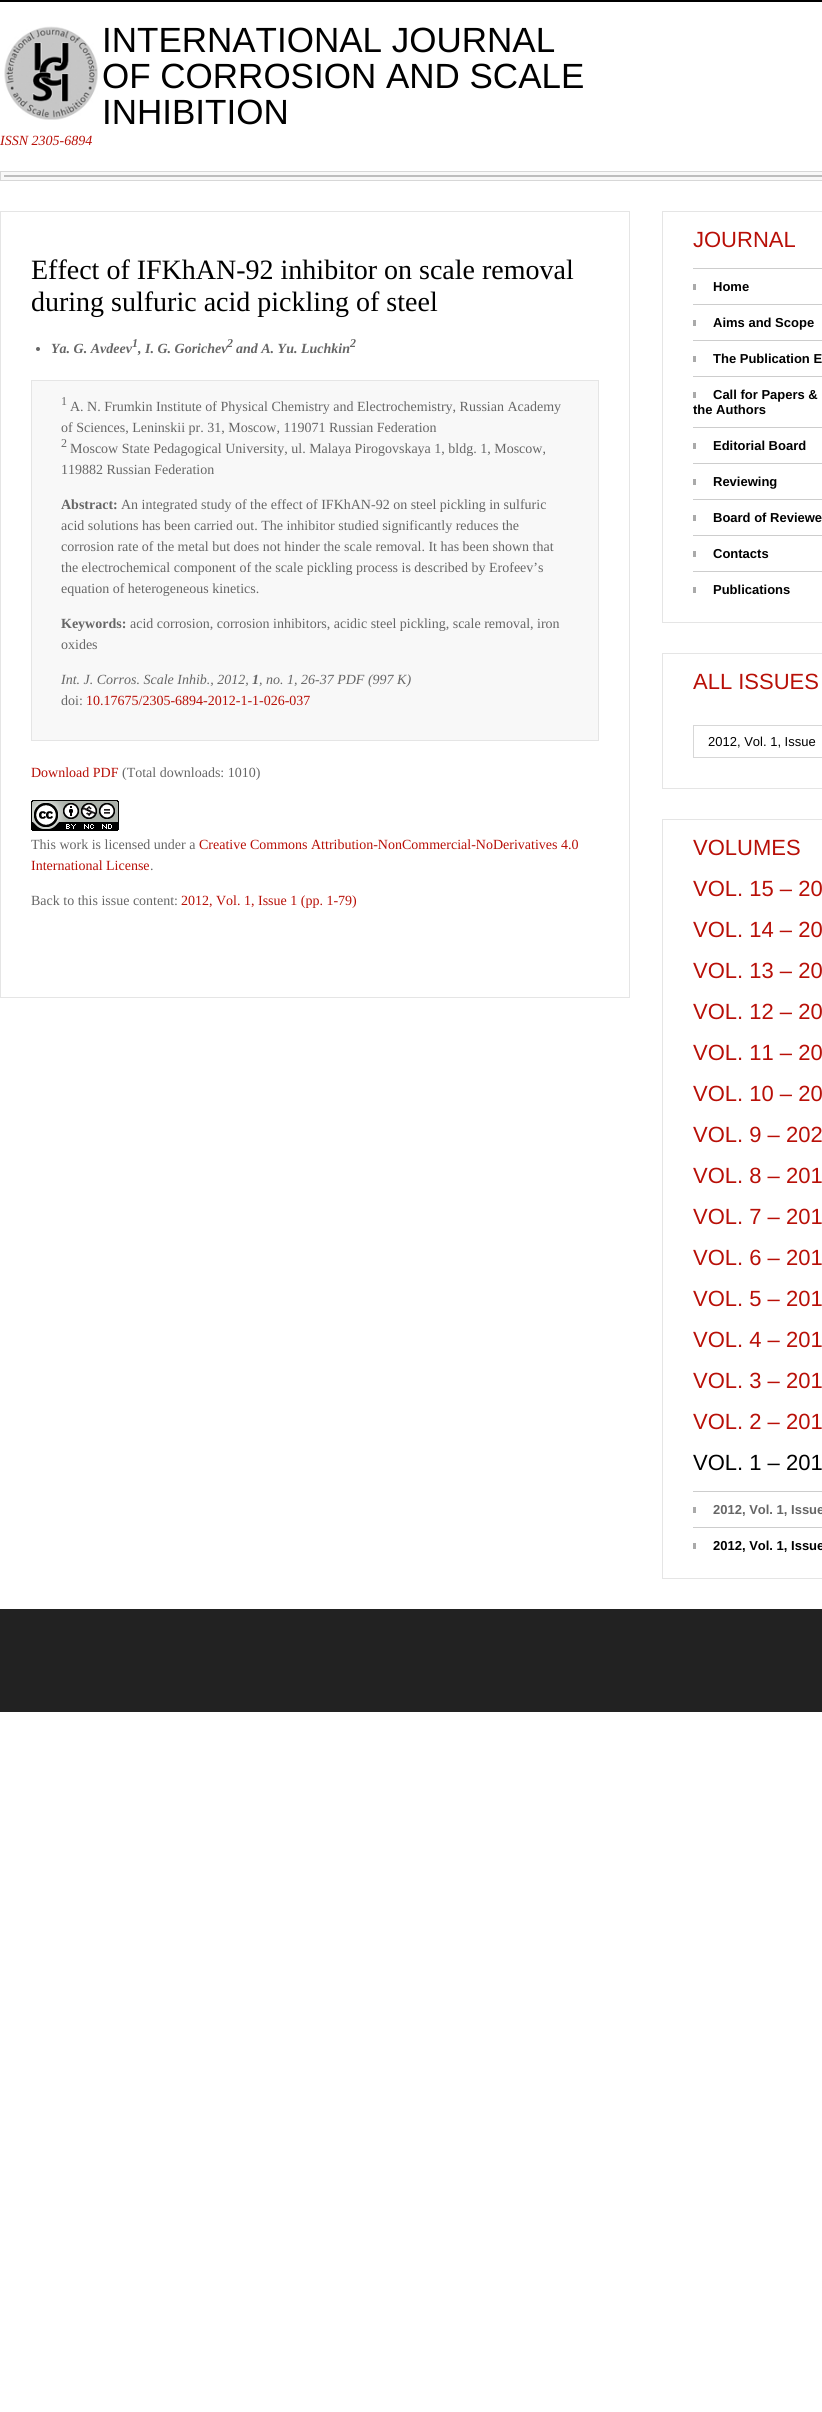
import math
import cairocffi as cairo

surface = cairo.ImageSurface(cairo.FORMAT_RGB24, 822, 2412)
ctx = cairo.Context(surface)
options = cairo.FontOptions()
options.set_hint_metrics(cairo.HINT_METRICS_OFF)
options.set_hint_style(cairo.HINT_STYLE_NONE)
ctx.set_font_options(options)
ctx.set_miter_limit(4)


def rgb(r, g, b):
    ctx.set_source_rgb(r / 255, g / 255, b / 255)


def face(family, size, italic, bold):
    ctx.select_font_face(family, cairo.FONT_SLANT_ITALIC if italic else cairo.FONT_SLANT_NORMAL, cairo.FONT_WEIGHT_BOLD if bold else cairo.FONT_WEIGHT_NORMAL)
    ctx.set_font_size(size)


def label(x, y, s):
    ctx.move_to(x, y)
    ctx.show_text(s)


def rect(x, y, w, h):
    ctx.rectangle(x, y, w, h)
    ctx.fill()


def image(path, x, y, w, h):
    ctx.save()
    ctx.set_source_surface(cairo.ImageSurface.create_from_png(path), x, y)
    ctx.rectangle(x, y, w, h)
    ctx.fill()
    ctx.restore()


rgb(255, 255, 255)
ctx.paint()
rgb(0, 0, 0)
rect(0, 0, 822, 2)
image('image0.png', 4, 26, 94, 94)
face('Liberation Sans', 35, 0, 0)
label(102, 52, 'INTERNATIONAL JOURNAL')
label(102, 88, 'OF CORROSION AND SCALE')
label(102, 124, 'INHIBITION')
face('Liberation Serif', 14, 1, 0)
rgb(184, 15, 7)
label(0, 145, 'ISSN 2305-6894')
rgb(248, 248, 248)
ctx.rectangle(0.5, 171.5, 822, 9)
ctx.fill_preserve()
rgb(215, 215, 215)
ctx.set_line_width(1)
ctx.stroke()
rgb(189, 189, 189)
rect(4, 175, 818, 2)
ctx.rectangle(0.5, 211.5, 629, 786)
rgb(229, 229, 229)
ctx.stroke()
face('Liberation Serif', 28, 0, 0)
rgb(0, 0, 0)
label(31, 279, 'Effect of IFKhAN-92 inhibitor on scale removal')
label(31, 311, 'during sulfuric acid pickling of steel')
rgb(102, 102, 102)
ctx.new_path()
ctx.arc(38, 349, 2, 0, 2 * math.pi)
ctx.fill()
face('Liberation Serif', 14, 1, 1)
label(51, 353, 'Ya. G. Avdeev')
face('Liberation Serif', 12, 1, 1)
label(132, 347, '1')
face('Liberation Serif', 14, 1, 1)
label(138, 353, ', I. G. Gorichev')
face('Liberation Serif', 12, 1, 1)
label(227, 347, '2')
face('Liberation Serif', 14, 1, 1)
label(236, 353, 'and А. Yu. Luchkin')
face('Liberation Serif', 12, 1, 1)
label(350, 347, '2')
rgb(248, 248, 248)
ctx.rectangle(31.5, 380.5, 567, 360)
ctx.fill_preserve()
rgb(229, 229, 229)
ctx.stroke()
face('Liberation Serif', 12, 0, 0)
rgb(102, 102, 102)
label(61, 405, '1')
face('Liberation Serif', 14, 0, 0)
label(70, 411, 'A. N. Frumkin Institute of Physical Chemistry and Electrochemistry, Russian Academy')
label(61, 432, 'of Sciences, Leninskii pr. 31, Moscow, 119071 Russian Federation')
face('Liberation Serif', 12, 0, 0)
label(61, 447, '2')
face('Liberation Serif', 14, 0, 0)
label(70, 453, 'Moscow State Pedagogical University, ul. Malaya Pirogovskaya 1, bldg. 1, Moscow,')
label(61, 474, '119882 Russian Federation')
face('Liberation Serif', 14, 0, 1)
label(61, 509, 'Abstract:')
face('Liberation Serif', 14, 0, 0)
label(121, 509, 'An integrated study of the effect of IFKhAN-92 on steel pickling in sulfuric')
label(61, 530, 'acid solutions has been carried out. The inhibitor studied significantly reduces the')
label(61, 551, 'corrosion rate of the metal but does not hinder the scale removal. It has been shown that')
label(61, 572, 'the electrochemical component of the scale pickling process is described by Erofeev’s')
label(61, 593, 'equation of heterogeneous kinetics.')
face('Liberation Serif', 14, 0, 1)
label(61, 628, 'Keywords:')
face('Liberation Serif', 14, 0, 0)
label(130, 628, 'acid corrosion, corrosion inhibitors, acidic steel pickling, scale removal, iron')
label(61, 649, 'oxides')
face('Liberation Serif', 14, 1, 0)
label(61, 684, 'Int. J. Corros. Scale Inhib., 2012,')
face('Liberation Serif', 14, 1, 1)
label(252, 684, '1')
face('Liberation Serif', 14, 1, 0)
label(259, 684, ', no. 1, 26-37 PDF (997 K)')
face('Liberation Serif', 14, 0, 0)
label(61, 705, 'doi:')
rgb(184, 15, 7)
label(86, 705, '10.17675/2305-6894-2012-1-1-026-037')
label(31, 777, 'Download PDF')
rgb(102, 102, 102)
label(122, 777, '(Total downloads: 1010)')
image('image1.png', 31, 800, 88, 31)
label(31, 849, 'This work is licensed under a')
rgb(184, 15, 7)
label(199, 849, 'Creative Commons Attribution-NonCommercial-NoDerivatives 4.0')
label(31, 870, 'International License')
rgb(102, 102, 102)
label(150, 870, '.')
label(31, 905, 'Back to this issue content:')
rgb(184, 15, 7)
label(181, 905, '2012, Vol. 1, Issue 1 (pp. 1-79)')
ctx.rectangle(662.5, 211.5, 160, 411)
rgb(229, 229, 229)
ctx.stroke()
face('Liberation Sans', 22, 0, 0)
rgb(184, 15, 7)
label(693, 247, 'JOURNAL')
rgb(205, 205, 205)
rect(693, 268, 129, 1)
face('Liberation Sans', 13, 0, 1)
rgb(0, 0, 0)
label(713, 291, 'Home')
rgb(170, 170, 170)
rect(693, 284, 3, 6)
rgb(205, 205, 205)
rect(693, 304, 129, 1)
rgb(0, 0, 0)
label(713, 327, 'Aims and Scope')
rgb(170, 170, 170)
rect(693, 320, 3, 6)
rgb(205, 205, 205)
rect(693, 340, 129, 1)
rgb(0, 0, 0)
label(713, 363, 'The Publication E')
rgb(170, 170, 170)
rect(693, 356, 3, 6)
rgb(205, 205, 205)
rect(693, 376, 129, 1)
rgb(0, 0, 0)
label(713, 399, 'Call for Papers &')
rgb(170, 170, 170)
rect(693, 392, 3, 6)
rgb(0, 0, 0)
label(693, 414, 'the Authors')
rgb(205, 205, 205)
rect(693, 427, 129, 1)
rgb(0, 0, 0)
label(713, 450, 'Editorial Board')
rgb(170, 170, 170)
rect(693, 443, 3, 6)
rgb(205, 205, 205)
rect(693, 463, 129, 1)
rgb(0, 0, 0)
label(713, 486, 'Reviewing')
rgb(170, 170, 170)
rect(693, 479, 3, 6)
rgb(205, 205, 205)
rect(693, 499, 129, 1)
rgb(0, 0, 0)
label(713, 522, 'Board of Reviewe')
rgb(170, 170, 170)
rect(693, 515, 3, 6)
rgb(205, 205, 205)
rect(693, 535, 129, 1)
rgb(0, 0, 0)
label(713, 558, 'Contacts')
rgb(170, 170, 170)
rect(693, 551, 3, 6)
rgb(205, 205, 205)
rect(693, 571, 129, 1)
rgb(0, 0, 0)
label(713, 594, 'Publications')
rgb(170, 170, 170)
rect(693, 587, 3, 6)
ctx.rectangle(662.5, 653.5, 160, 135)
rgb(229, 229, 229)
ctx.stroke()
face('Liberation Sans', 22, 0, 0)
rgb(184, 15, 7)
label(693, 689, 'ALL ISSUES')
ctx.rectangle(693.5, 725.5, 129, 32)
rgb(215, 215, 215)
ctx.stroke()
face('Liberation Sans', 13, 0, 0)
rgb(0, 0, 0)
label(708, 746, '2012, Vol. 1, Issue')
ctx.rectangle(662.5, 819.5, 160, 759)
rgb(229, 229, 229)
ctx.stroke()
face('Liberation Sans', 22, 0, 0)
rgb(184, 15, 7)
label(693, 855, 'VOLUMES')
label(693, 896, 'VOL. 15 – 20')
label(693, 937, 'VOL. 14 – 20')
label(693, 978, 'VOL. 13 – 20')
label(693, 1019, 'VOL. 12 – 20')
label(693, 1060, 'VOL. 11 – 20')
label(693, 1101, 'VOL. 10 – 20')
label(693, 1142, 'VOL. 9 – 202')
label(693, 1183, 'VOL. 8 – 201')
label(693, 1224, 'VOL. 7 – 201')
label(693, 1265, 'VOL. 6 – 201')
label(693, 1306, 'VOL. 5 – 201')
label(693, 1347, 'VOL. 4 – 201')
label(693, 1388, 'VOL. 3 – 201')
label(693, 1429, 'VOL. 2 – 201')
rgb(0, 0, 0)
label(693, 1470, 'VOL. 1 – 201')
rgb(205, 205, 205)
rect(693, 1491, 129, 1)
face('Liberation Sans', 13, 0, 1)
rgb(102, 102, 102)
label(713, 1514, '2012, Vol. 1, Issue')
rgb(170, 170, 170)
rect(693, 1507, 3, 6)
rgb(205, 205, 205)
rect(693, 1527, 129, 1)
rgb(0, 0, 0)
label(713, 1550, '2012, Vol. 1, Issue')
rgb(170, 170, 170)
rect(693, 1543, 3, 6)
rgb(34, 34, 34)
rect(0, 1609, 822, 103)
surface.write_to_png('render.png')
